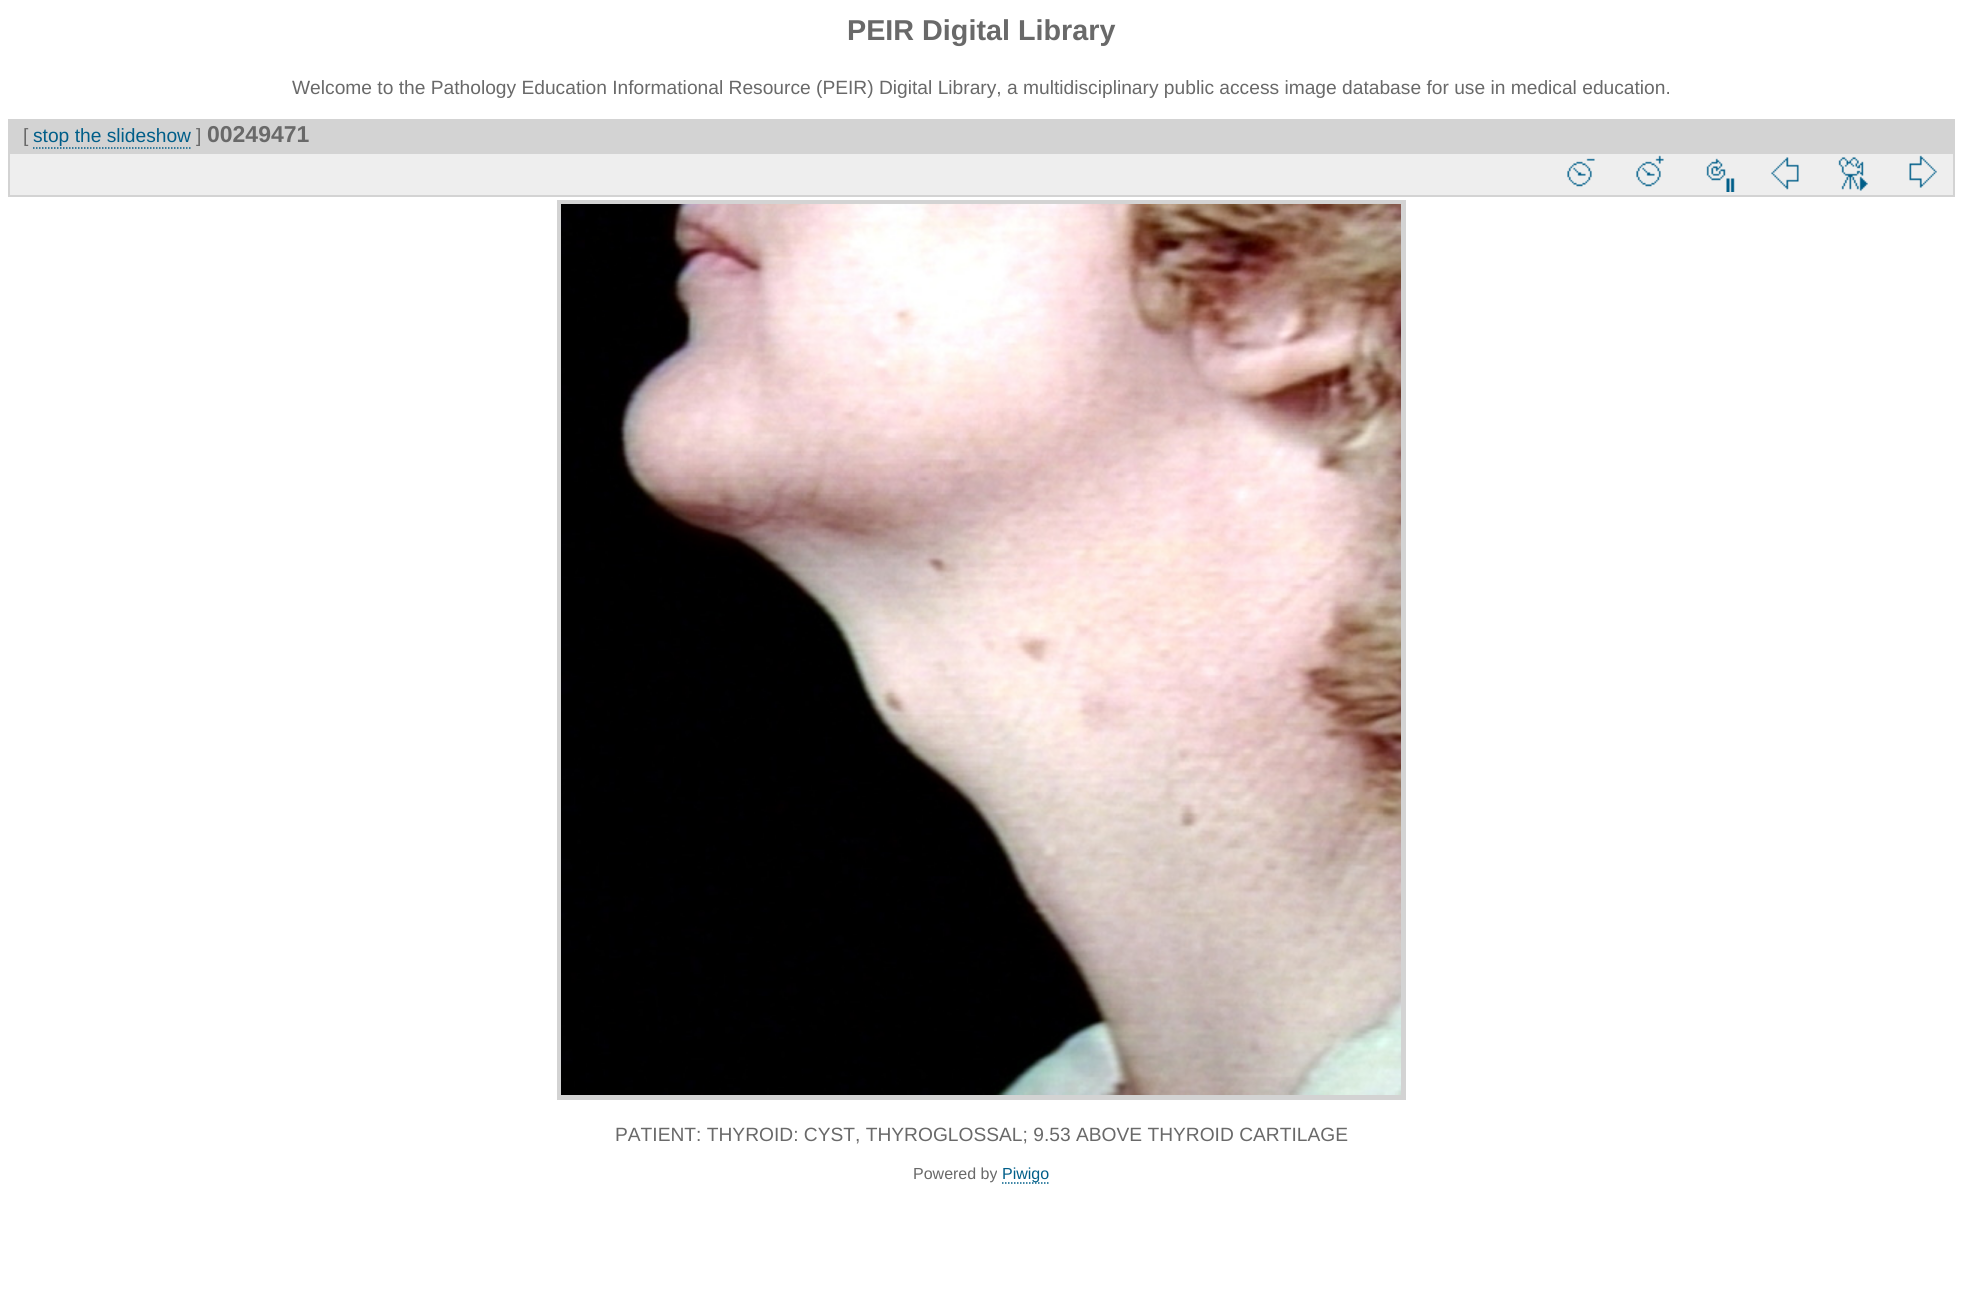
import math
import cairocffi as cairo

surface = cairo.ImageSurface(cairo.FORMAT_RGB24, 1962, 1302)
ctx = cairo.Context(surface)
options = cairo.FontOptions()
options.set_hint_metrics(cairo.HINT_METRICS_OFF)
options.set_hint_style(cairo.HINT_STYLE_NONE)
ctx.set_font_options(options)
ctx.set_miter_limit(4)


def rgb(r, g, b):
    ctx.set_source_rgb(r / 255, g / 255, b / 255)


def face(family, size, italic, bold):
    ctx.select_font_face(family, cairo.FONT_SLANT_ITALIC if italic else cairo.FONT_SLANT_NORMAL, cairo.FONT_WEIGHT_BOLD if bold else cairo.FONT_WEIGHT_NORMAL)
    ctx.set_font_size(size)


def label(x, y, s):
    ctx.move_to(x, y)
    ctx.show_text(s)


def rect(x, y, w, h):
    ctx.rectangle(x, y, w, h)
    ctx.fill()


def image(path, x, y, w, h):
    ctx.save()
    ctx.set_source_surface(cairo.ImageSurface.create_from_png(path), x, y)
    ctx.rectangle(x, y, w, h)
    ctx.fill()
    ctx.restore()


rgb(255, 255, 255)
ctx.paint()
face('Liberation Sans', 28.75, 0, 1)
rgb(105, 105, 105)
label(847, 40, 'PEIR Digital Library')
face('Liberation Sans', 19.2, 0, 0)
label(292, 94, 'Welcome to the Pathology Education Informational Resource (PEIR) Digital Library, a multidisciplinary public access image database for use in medical education.')
rgb(211, 211, 211)
rect(8, 119, 1947, 33)
rgb(105, 105, 105)
label(23, 142, '[')
rgb(0, 94, 137)
label(33, 142, 'stop the slideshow')
ctx.new_path()
ctx.move_to(33, 148)
ctx.line_to(190.5, 148)
ctx.set_line_width(1.5)
ctx.set_dash([1.5, 1.5])
ctx.stroke()
rgb(105, 105, 105)
label(196, 142, ']')
face('Liberation Sans', 23, 0, 1)
label(207, 142, '00249471')
rgb(238, 238, 238)
ctx.rectangle(9, 153, 1945, 43)
ctx.fill_preserve()
rgb(211, 211, 211)
ctx.set_line_width(2)
ctx.set_dash([])
ctx.stroke()
image('image0.png', 1567, 158, 28, 29)
image('image1.png', 1636, 155, 28, 32)
image('image2.png', 1706, 158, 29, 34)
image('image3.png', 1771, 157, 28, 33)
image('image4.png', 1838, 157, 30, 34)
image('image5.png', 1909, 155, 28, 33)
ctx.rectangle(559.5, 202.5, 844, 895)
ctx.set_line_width(5)
ctx.stroke()
image('image6.png', 561, 204, 840, 891)
face('Liberation Sans', 19.2, 0, 0)
rgb(105, 105, 105)
label(615, 1141, 'PATIENT: THYROID: CYST, THYROGLOSSAL; 9.53 ABOVE THYROID CARTILAGE')
face('Liberation Sans', 16, 0, 0)
label(913, 1179, 'Powered by')
ctx.new_path()
ctx.move_to(1002, 1183)
ctx.line_to(1048.5, 1183)
rgb(0, 94, 137)
ctx.set_line_width(1.5)
ctx.set_dash([1.5, 1.5])
ctx.stroke()
label(1002, 1179, 'Piwigo')
surface.write_to_png('render.png')
